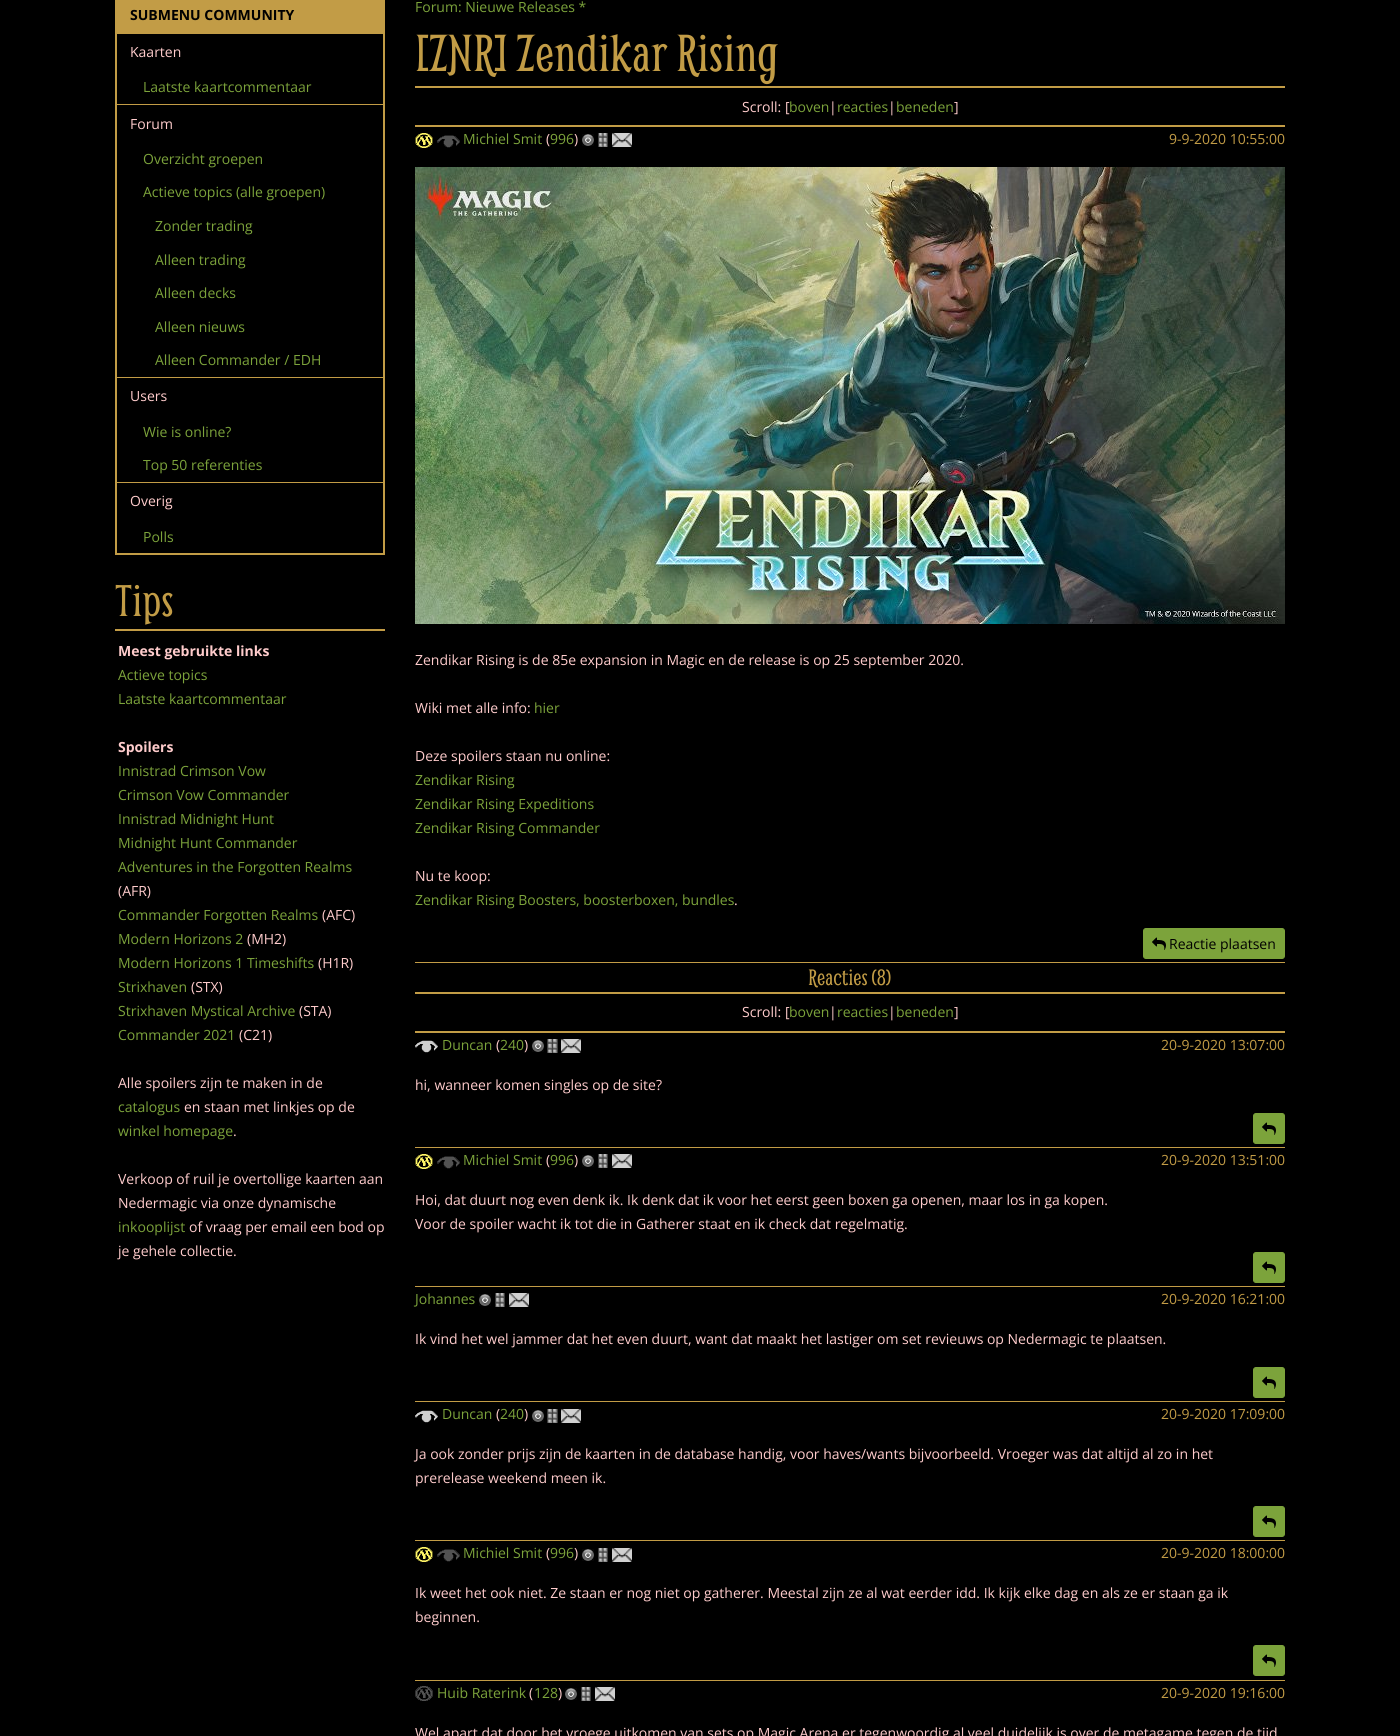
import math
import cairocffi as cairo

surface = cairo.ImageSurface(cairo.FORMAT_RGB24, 1400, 1736)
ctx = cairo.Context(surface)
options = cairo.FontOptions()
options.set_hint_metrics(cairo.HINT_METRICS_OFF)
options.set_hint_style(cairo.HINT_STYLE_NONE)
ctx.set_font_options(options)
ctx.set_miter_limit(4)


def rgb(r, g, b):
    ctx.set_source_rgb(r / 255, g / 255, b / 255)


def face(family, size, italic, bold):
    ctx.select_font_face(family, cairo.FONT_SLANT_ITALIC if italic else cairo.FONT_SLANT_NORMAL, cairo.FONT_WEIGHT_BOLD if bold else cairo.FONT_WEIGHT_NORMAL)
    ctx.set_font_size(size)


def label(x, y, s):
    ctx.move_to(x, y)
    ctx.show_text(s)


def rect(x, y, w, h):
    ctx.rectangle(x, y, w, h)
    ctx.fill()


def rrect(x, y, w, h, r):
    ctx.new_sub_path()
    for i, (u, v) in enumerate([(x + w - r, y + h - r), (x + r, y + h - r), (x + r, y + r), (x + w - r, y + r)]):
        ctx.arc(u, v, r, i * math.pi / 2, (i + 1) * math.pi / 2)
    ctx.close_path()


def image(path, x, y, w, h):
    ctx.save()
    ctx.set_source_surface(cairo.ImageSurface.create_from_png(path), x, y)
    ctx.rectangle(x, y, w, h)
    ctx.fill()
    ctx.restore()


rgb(0, 0, 0)
ctx.paint()
ctx.rectangle(116, -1, 268, 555)
rgb(194, 156, 70)
ctx.stroke()
rect(117, 0, 266, 34)
face('Open Sans', 14, 0, 1)
rgb(0, 0, 0)
label(130, 20, 'SUBMENU COMMUNITY')
face('Open Sans', 14, 0, 0)
rgb(255, 204, 204)
label(130, 57, 'Kaarten')
rgb(194, 156, 70)
rect(117, 104, 266, 1)
rgb(124, 163, 59)
label(143, 92, 'Laatste kaartcommentaar')
rgb(255, 204, 204)
label(130, 129, 'Forum')
rgb(194, 156, 70)
rect(117, 377, 266, 1)
rgb(124, 163, 59)
label(143, 164, 'Overzicht groepen')
label(143, 197, 'Actieve topics (alle groepen)')
label(155, 231, 'Zonder trading')
label(155, 265, 'Alleen trading')
label(155, 298, 'Alleen decks')
label(155, 332, 'Alleen nieuws')
label(155, 365, 'Alleen Commander / EDH')
rgb(255, 204, 204)
label(130, 401, 'Users')
rgb(194, 156, 70)
rect(117, 482, 266, 1)
rgb(124, 163, 59)
label(143, 437, 'Wie is online?')
label(143, 470, 'Top 50 referenties')
rgb(255, 204, 204)
label(130, 506, 'Overig')
rgb(124, 163, 59)
label(143, 542, 'Polls')
rgb(194, 156, 70)
rect(115, 629, 270, 2)
face('Smythe', 48, 0, 0)
label(115, 616, 'Tips')
face('Open Sans', 14, 0, 1)
rgb(255, 204, 204)
label(118, 656, 'Meest gebruikte links')
face('Open Sans', 14, 0, 0)
rgb(124, 163, 59)
label(118, 680, 'Actieve topics')
label(118, 704, 'Laatste kaartcommentaar')
face('Open Sans', 14, 0, 1)
rgb(255, 204, 204)
label(118, 752, 'Spoilers')
face('Open Sans', 14, 0, 0)
rgb(124, 163, 59)
label(118, 776, 'Innistrad Crimson Vow')
label(118, 800, 'Crimson Vow Commander')
label(118, 824, 'Innistrad Midnight Hunt')
label(118, 848, 'Midnight Hunt Commander')
label(118, 872, 'Adventures in the Forgotten Realms')
rgb(255, 204, 204)
label(118, 896, '(AFR)')
rgb(124, 163, 59)
label(118, 920, 'Commander Forgotten Realms')
rgb(255, 204, 204)
label(322, 920, '(AFC)')
rgb(124, 163, 59)
label(118, 944, 'Modern Horizons 2')
rgb(255, 204, 204)
label(247, 944, '(MH2)')
rgb(124, 163, 59)
label(118, 968, 'Modern Horizons 1 Timeshifts')
rgb(255, 204, 204)
label(318, 968, '(H1R)')
rgb(124, 163, 59)
label(118, 992, 'Strixhaven')
rgb(255, 204, 204)
label(191, 992, '(STX)')
rgb(124, 163, 59)
label(118, 1016, 'Strixhaven Mystical Archive')
rgb(255, 204, 204)
label(299, 1016, '(STA)')
rgb(124, 163, 59)
label(118, 1040, 'Commander 2021')
rgb(255, 204, 204)
label(239, 1040, '(C21)')
label(118, 1088, 'Alle spoilers zijn te maken in de')
rgb(124, 163, 59)
label(118, 1112, 'catalogus')
rgb(255, 204, 204)
label(184, 1112, 'en staan met linkjes op de')
rgb(124, 163, 59)
label(118, 1136, 'winkel homepage')
rgb(255, 204, 204)
label(233, 1136, '.')
label(118, 1184, 'Verkoop of ruil je overtollige kaarten aan')
label(118, 1208, 'Nedermagic via onze dynamische')
rgb(124, 163, 59)
label(118, 1232, 'inkooplijst')
rgb(255, 204, 204)
label(189, 1232, 'of vraag per email een bod op')
label(118, 1256, 'je gehele collectie.')
rgb(124, 163, 59)
label(415, 12, 'Forum: Nieuwe Releases *')
rgb(194, 156, 70)
rect(415, 86, 870, 2)
face('Smythe', 56, 0, 0)
label(415, 71, '[ZNR] Zendikar Rising')
rect(415, 125, 870, 2)
face('Open Sans', 14, 0, 0)
rgb(255, 204, 204)
label(742, 112, 'Scroll: [')
rgb(124, 163, 59)
label(789, 112, 'boven')
rgb(255, 204, 204)
label(829, 112, '|')
rgb(124, 163, 59)
label(837, 112, 'reacties')
rgb(255, 204, 204)
label(888, 112, '|')
rgb(124, 163, 59)
label(896, 112, 'beneden')
rgb(255, 204, 204)
label(954, 112, ']')
image('image0.png', 415, 133, 18, 15)
image('image1.png', 437, 135, 23, 13)
rgb(124, 163, 59)
label(463, 144, 'Michiel Smit')
rgb(255, 204, 204)
label(546, 144, '(')
rgb(124, 163, 59)
label(550, 144, '996')
rgb(255, 204, 204)
label(574, 144, ')')
image('image2.png', 582, 134, 12, 12)
image('image3.png', 598, 133, 10, 14)
image('image4.png', 612, 133, 20, 14)
rgb(194, 156, 70)
label(1169, 144, '9-9-2020 10:55:00')
image('image5.png', 415, 167, 870, 457)
rgb(255, 204, 204)
label(415, 665, 'Zendikar Rising is de 85e expansion in Magic en de release is op 25 september 2020.')
label(415, 713, 'Wiki met alle info:')
rgb(124, 163, 59)
label(534, 713, 'hier')
rgb(255, 204, 204)
label(415, 761, 'Deze spoilers staan nu online:')
rgb(124, 163, 59)
label(415, 785, 'Zendikar Rising')
label(415, 809, 'Zendikar Rising Expeditions')
label(415, 833, 'Zendikar Rising Commander')
rgb(255, 204, 204)
label(415, 881, 'Nu te koop:')
rgb(124, 163, 59)
label(415, 905, 'Zendikar Rising Boosters, boosterboxen, bundles')
rgb(255, 204, 204)
label(734, 905, '.')
rgb(194, 156, 70)
rect(415, 962, 870, 1)
rgb(124, 163, 59)
rrect(1143.5, 928.5, 141, 30, 2.5)
ctx.fill_preserve()
ctx.set_line_width(1)
ctx.stroke()
image('image6.png', 1152, 937, 14, 13)
rgb(0, 0, 0)
label(1169, 949, 'Reactie plaatsen')
rgb(194, 156, 70)
rect(415, 992, 870, 2)
face('Smythe', 24, 0, 0)
label(808, 985, 'Reacties (8)')
rect(415, 1031, 870, 2)
face('Open Sans', 14, 0, 0)
rgb(255, 204, 204)
label(742, 1017, 'Scroll: [')
rgb(124, 163, 59)
label(789, 1017, 'boven')
rgb(255, 204, 204)
label(829, 1017, '|')
rgb(124, 163, 59)
label(837, 1017, 'reacties')
rgb(255, 204, 204)
label(888, 1017, '|')
rgb(124, 163, 59)
label(896, 1017, 'beneden')
rgb(255, 204, 204)
label(954, 1017, ']')
image('image7.png', 415, 1040, 23, 13)
rgb(124, 163, 59)
label(442, 1050, 'Duncan')
rgb(255, 204, 204)
label(496, 1050, '(')
rgb(124, 163, 59)
label(500, 1050, '240')
rgb(255, 204, 204)
label(524, 1050, ')')
image('image2.png', 532, 1040, 12, 12)
image('image8.png', 547, 1039, 11, 14)
image('image9.png', 561, 1039, 20, 14)
rgb(194, 156, 70)
label(1161, 1050, '20-9-2020 13:07:00')
rgb(255, 204, 204)
label(415, 1090, 'hi, wanneer komen singles op de site?')
rgb(194, 156, 70)
rect(415, 1147, 870, 1)
rgb(124, 163, 59)
rrect(1253.5, 1113.5, 31, 30, 2.5)
ctx.fill_preserve()
ctx.stroke()
image('image6.png', 1262, 1122, 14, 13)
image('image0.png', 415, 1154, 18, 15)
image('image1.png', 437, 1156, 23, 13)
label(463, 1165, 'Michiel Smit')
rgb(255, 204, 204)
label(546, 1165, '(')
rgb(124, 163, 59)
label(550, 1165, '996')
rgb(255, 204, 204)
label(574, 1165, ')')
image('image2.png', 582, 1155, 12, 12)
image('image3.png', 598, 1154, 10, 14)
image('image4.png', 612, 1154, 20, 14)
rgb(194, 156, 70)
label(1161, 1165, '20-9-2020 13:51:00')
rgb(255, 204, 204)
label(415, 1205, 'Hoi, dat duurt nog even denk ik. Ik denk dat ik voor het eerst geen boxen ga openen, maar los in ga kopen.')
label(415, 1229, 'Voor de spoiler wacht ik tot die in Gatherer staat en ik check dat regelmatig.')
rgb(194, 156, 70)
rect(415, 1286, 870, 1)
rgb(124, 163, 59)
rrect(1253.5, 1252.5, 31, 30, 2.5)
ctx.fill_preserve()
ctx.stroke()
image('image6.png', 1262, 1261, 14, 13)
label(415, 1304, 'Johannes')
image('image2.png', 479, 1294, 12, 12)
image('image3.png', 495, 1293, 10, 14)
image('image9.png', 509, 1293, 20, 14)
rgb(194, 156, 70)
label(1161, 1304, '20-9-2020 16:21:00')
rgb(255, 204, 204)
label(415, 1344, 'Ik vind het wel jammer dat het even duurt, want dat maakt het lastiger om set revieuws op Nedermagic te plaatsen.')
rgb(194, 156, 70)
rect(415, 1401, 870, 1)
rgb(124, 163, 59)
rrect(1253.5, 1367.5, 31, 30, 2.5)
ctx.fill_preserve()
ctx.stroke()
image('image6.png', 1262, 1376, 14, 13)
image('image7.png', 415, 1410, 23, 13)
label(442, 1419, 'Duncan')
rgb(255, 204, 204)
label(496, 1419, '(')
rgb(124, 163, 59)
label(500, 1419, '240')
rgb(255, 204, 204)
label(524, 1419, ')')
image('image2.png', 532, 1410, 12, 12)
image('image8.png', 547, 1409, 11, 14)
image('image9.png', 561, 1409, 20, 14)
rgb(194, 156, 70)
label(1161, 1419, '20-9-2020 17:09:00')
rgb(255, 204, 204)
label(415, 1459, 'Ja ook zonder prijs zijn de kaarten in de database handig, voor haves/wants bijvoorbeeld. Vroeger was dat altijd al zo in het')
label(415, 1483, 'prerelease weekend meen ik.')
rgb(194, 156, 70)
rect(415, 1540, 870, 1)
rgb(124, 163, 59)
rrect(1253.5, 1506.5, 31, 30, 2.5)
ctx.fill_preserve()
ctx.stroke()
image('image6.png', 1262, 1515, 14, 13)
image('image0.png', 415, 1547, 18, 15)
image('image1.png', 437, 1549, 23, 13)
label(463, 1558, 'Michiel Smit')
rgb(255, 204, 204)
label(546, 1558, '(')
rgb(124, 163, 59)
label(550, 1558, '996')
rgb(255, 204, 204)
label(574, 1558, ')')
image('image2.png', 582, 1549, 12, 12)
image('image3.png', 598, 1548, 10, 14)
image('image4.png', 612, 1548, 20, 14)
rgb(194, 156, 70)
label(1161, 1558, '20-9-2020 18:00:00')
rgb(255, 204, 204)
label(415, 1598, 'Ik weet het ook niet. Ze staan er nog niet op gatherer. Meestal zijn ze al wat eerder idd. Ik kijk elke dag en als ze er staan ga ik')
label(415, 1622, 'beginnen.')
rgb(194, 156, 70)
rect(415, 1680, 870, 1)
rgb(124, 163, 59)
rrect(1253.5, 1645.5, 31, 30, 2.5)
ctx.fill_preserve()
ctx.stroke()
image('image6.png', 1262, 1654, 14, 13)
image('image10.png', 415, 1686, 18, 15)
label(437, 1698, 'Huib Raterink')
rgb(255, 204, 204)
label(529, 1698, '(')
rgb(124, 163, 59)
label(534, 1698, '128')
rgb(255, 204, 204)
label(558, 1698, ')')
image('image2.png', 565, 1688, 12, 12)
image('image11.png', 581, 1687, 10, 14)
image('image4.png', 595, 1687, 20, 14)
rgb(194, 156, 70)
label(1161, 1698, '20-9-2020 19:16:00')
rgb(255, 204, 204)
label(415, 1738, 'Wel apart dat door het vroege uitkomen van sets op Magic Arena er tegenwoordig al veel duidelijk is over de metagame tegen de tijd')
surface.write_to_png('render.png')
